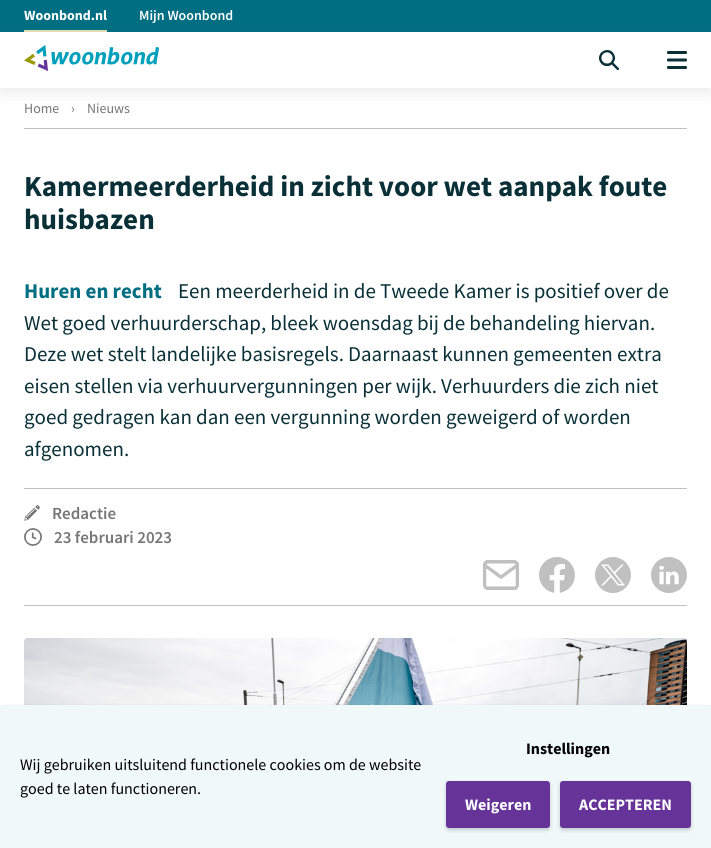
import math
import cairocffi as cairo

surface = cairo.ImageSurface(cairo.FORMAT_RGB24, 711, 848)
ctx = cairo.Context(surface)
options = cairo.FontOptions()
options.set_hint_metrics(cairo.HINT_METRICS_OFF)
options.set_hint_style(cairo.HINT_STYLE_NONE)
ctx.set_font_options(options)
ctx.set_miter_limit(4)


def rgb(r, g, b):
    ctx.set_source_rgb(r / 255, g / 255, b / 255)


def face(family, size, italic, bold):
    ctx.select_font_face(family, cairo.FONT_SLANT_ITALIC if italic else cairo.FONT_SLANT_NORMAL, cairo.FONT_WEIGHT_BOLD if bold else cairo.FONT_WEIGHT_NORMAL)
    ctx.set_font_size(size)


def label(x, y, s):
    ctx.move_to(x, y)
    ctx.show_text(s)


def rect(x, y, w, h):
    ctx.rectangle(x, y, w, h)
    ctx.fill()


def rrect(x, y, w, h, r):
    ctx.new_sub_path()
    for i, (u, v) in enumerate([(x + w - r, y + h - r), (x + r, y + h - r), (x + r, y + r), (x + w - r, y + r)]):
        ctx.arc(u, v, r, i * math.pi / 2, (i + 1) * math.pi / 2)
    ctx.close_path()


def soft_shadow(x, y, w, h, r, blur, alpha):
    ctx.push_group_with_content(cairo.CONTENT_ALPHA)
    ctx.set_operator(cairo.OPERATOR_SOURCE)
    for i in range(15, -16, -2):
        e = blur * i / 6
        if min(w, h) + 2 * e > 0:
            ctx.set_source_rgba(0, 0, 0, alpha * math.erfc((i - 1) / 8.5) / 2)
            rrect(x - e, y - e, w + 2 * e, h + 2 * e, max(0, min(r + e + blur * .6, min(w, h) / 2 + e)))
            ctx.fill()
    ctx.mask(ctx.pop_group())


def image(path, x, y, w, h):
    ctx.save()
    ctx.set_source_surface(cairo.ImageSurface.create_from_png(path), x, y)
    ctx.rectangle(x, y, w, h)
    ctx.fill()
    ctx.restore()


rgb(255, 255, 255)
ctx.paint()
rgb(0, 110, 130)
rect(0, 0, 711, 32)
rgb(224, 224, 179)
rect(24, 30, 83, 2)
face('Source Sans Pro', 14, 0, 1)
rgb(255, 255, 255)
label(24, 20, 'Woonbond.nl')
face('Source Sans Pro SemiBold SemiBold', 14, 0, 0)
label(139, 20, 'Mijn Woonbond')
ctx.save()
ctx.set_fill_rule(cairo.FILL_RULE_EVEN_ODD)
ctx.new_path()
ctx.move_to(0, 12)
ctx.line_to(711, 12)
ctx.line_to(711, 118)
ctx.line_to(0, 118)
ctx.close_path()
ctx.move_to(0, 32)
ctx.line_to(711, 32)
ctx.line_to(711, 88)
ctx.line_to(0, 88)
ctx.close_path()
ctx.clip()
rgb(96, 97, 112)
soft_shadow(0, 37, 711, 56, 0, 8, 0.12)
ctx.restore()
image('image0.png', 24, 45, 135, 26)
image('image1.png', 599, 50, 20, 20)
image('image2.png', 667, 51, 20, 18)
rgb(192, 192, 192)
rect(24, 128, 663, 1)
face('Source Sans Pro', 14, 0, 0)
rgb(119, 118, 118)
label(24, 113, 'Home')
label(71, 113, '›')
label(87, 113, 'Nieuws')
face('Source Sans Pro', 29, 0, 1)
rgb(9, 48, 55)
label(24, 196, 'Kamermeerderheid in zicht voor wet aanpak foute')
label(24, 229, 'huisbazen')
face('Source Sans Pro', 21, 0, 1)
rgb(0, 110, 130)
label(24, 298, 'Huren en recht')
face('Source Sans Pro', 21, 0, 0)
rgb(9, 48, 55)
label(178, 298, 'Een meerderheid in de Tweede Kamer is positief over de')
label(24, 330, 'Wet goed verhuurderschap, bleek woensdag bij de behandeling hiervan.')
label(24, 361, 'Deze wet stelt landelijke basisregels. Daarnaast kunnen gemeenten extra')
label(24, 393, 'eisen stellen via verhuurvergunningen per wijk. Verhuurders die zich niet')
label(24, 424, 'goed gedragen kan dan een vergunning worden geweigerd of worden')
label(24, 456, 'afgenomen.')
rgb(192, 192, 192)
rect(24, 488, 663, 1)
rect(24, 605, 663, 1)
image('image3.png', 24, 505, 16, 16)
face('Source Sans Pro SemiBold SemiBold', 17, 0, 0)
rgb(119, 118, 118)
label(52, 519, 'Redactie')
image('image4.png', 24, 528, 18, 18)
label(54, 543, '23 februari 2023')
image('image5.png', 483, 560, 36, 30)
image('image6.png', 539, 557, 36, 36)
image('image7.png', 595, 557, 36, 36)
image('image8.png', 651, 557, 36, 36)
image('image9.png', 24, 638, 663, 67)
rgb(0, 0, 0)
soft_shadow(0, 707, 711, 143, 5, 2, 0.2)
rgb(240, 248, 250)
rect(0, 705, 711, 143)
face('Source Sans Pro', 16, 0, 0)
rgb(0, 0, 0)
label(20, 770, 'Wij gebruiken uitsluitend functionele cookies om de website')
label(20, 794, 'goed te laten functioneren.')
face('Source Sans Pro', 16, 0, 1)
label(526, 754, 'Instellingen')
rgb(0, 0, 0)
soft_shadow(446, 783, 104, 47, 3, 2, 0.2)
rgb(102, 51, 153)
rrect(446.5, 781.5, 103, 46, 2.5)
ctx.fill_preserve()
ctx.set_line_width(1)
ctx.stroke()
rgb(255, 255, 255)
label(465, 810, 'Weigeren')
rgb(0, 0, 0)
soft_shadow(560, 783, 131, 47, 3, 2, 0.2)
rgb(102, 51, 153)
rrect(560.5, 781.5, 130, 46, 2.5)
ctx.fill_preserve()
ctx.stroke()
rgb(255, 255, 255)
label(579, 810, 'ACCEPTEREN')
surface.write_to_png('render.png')
